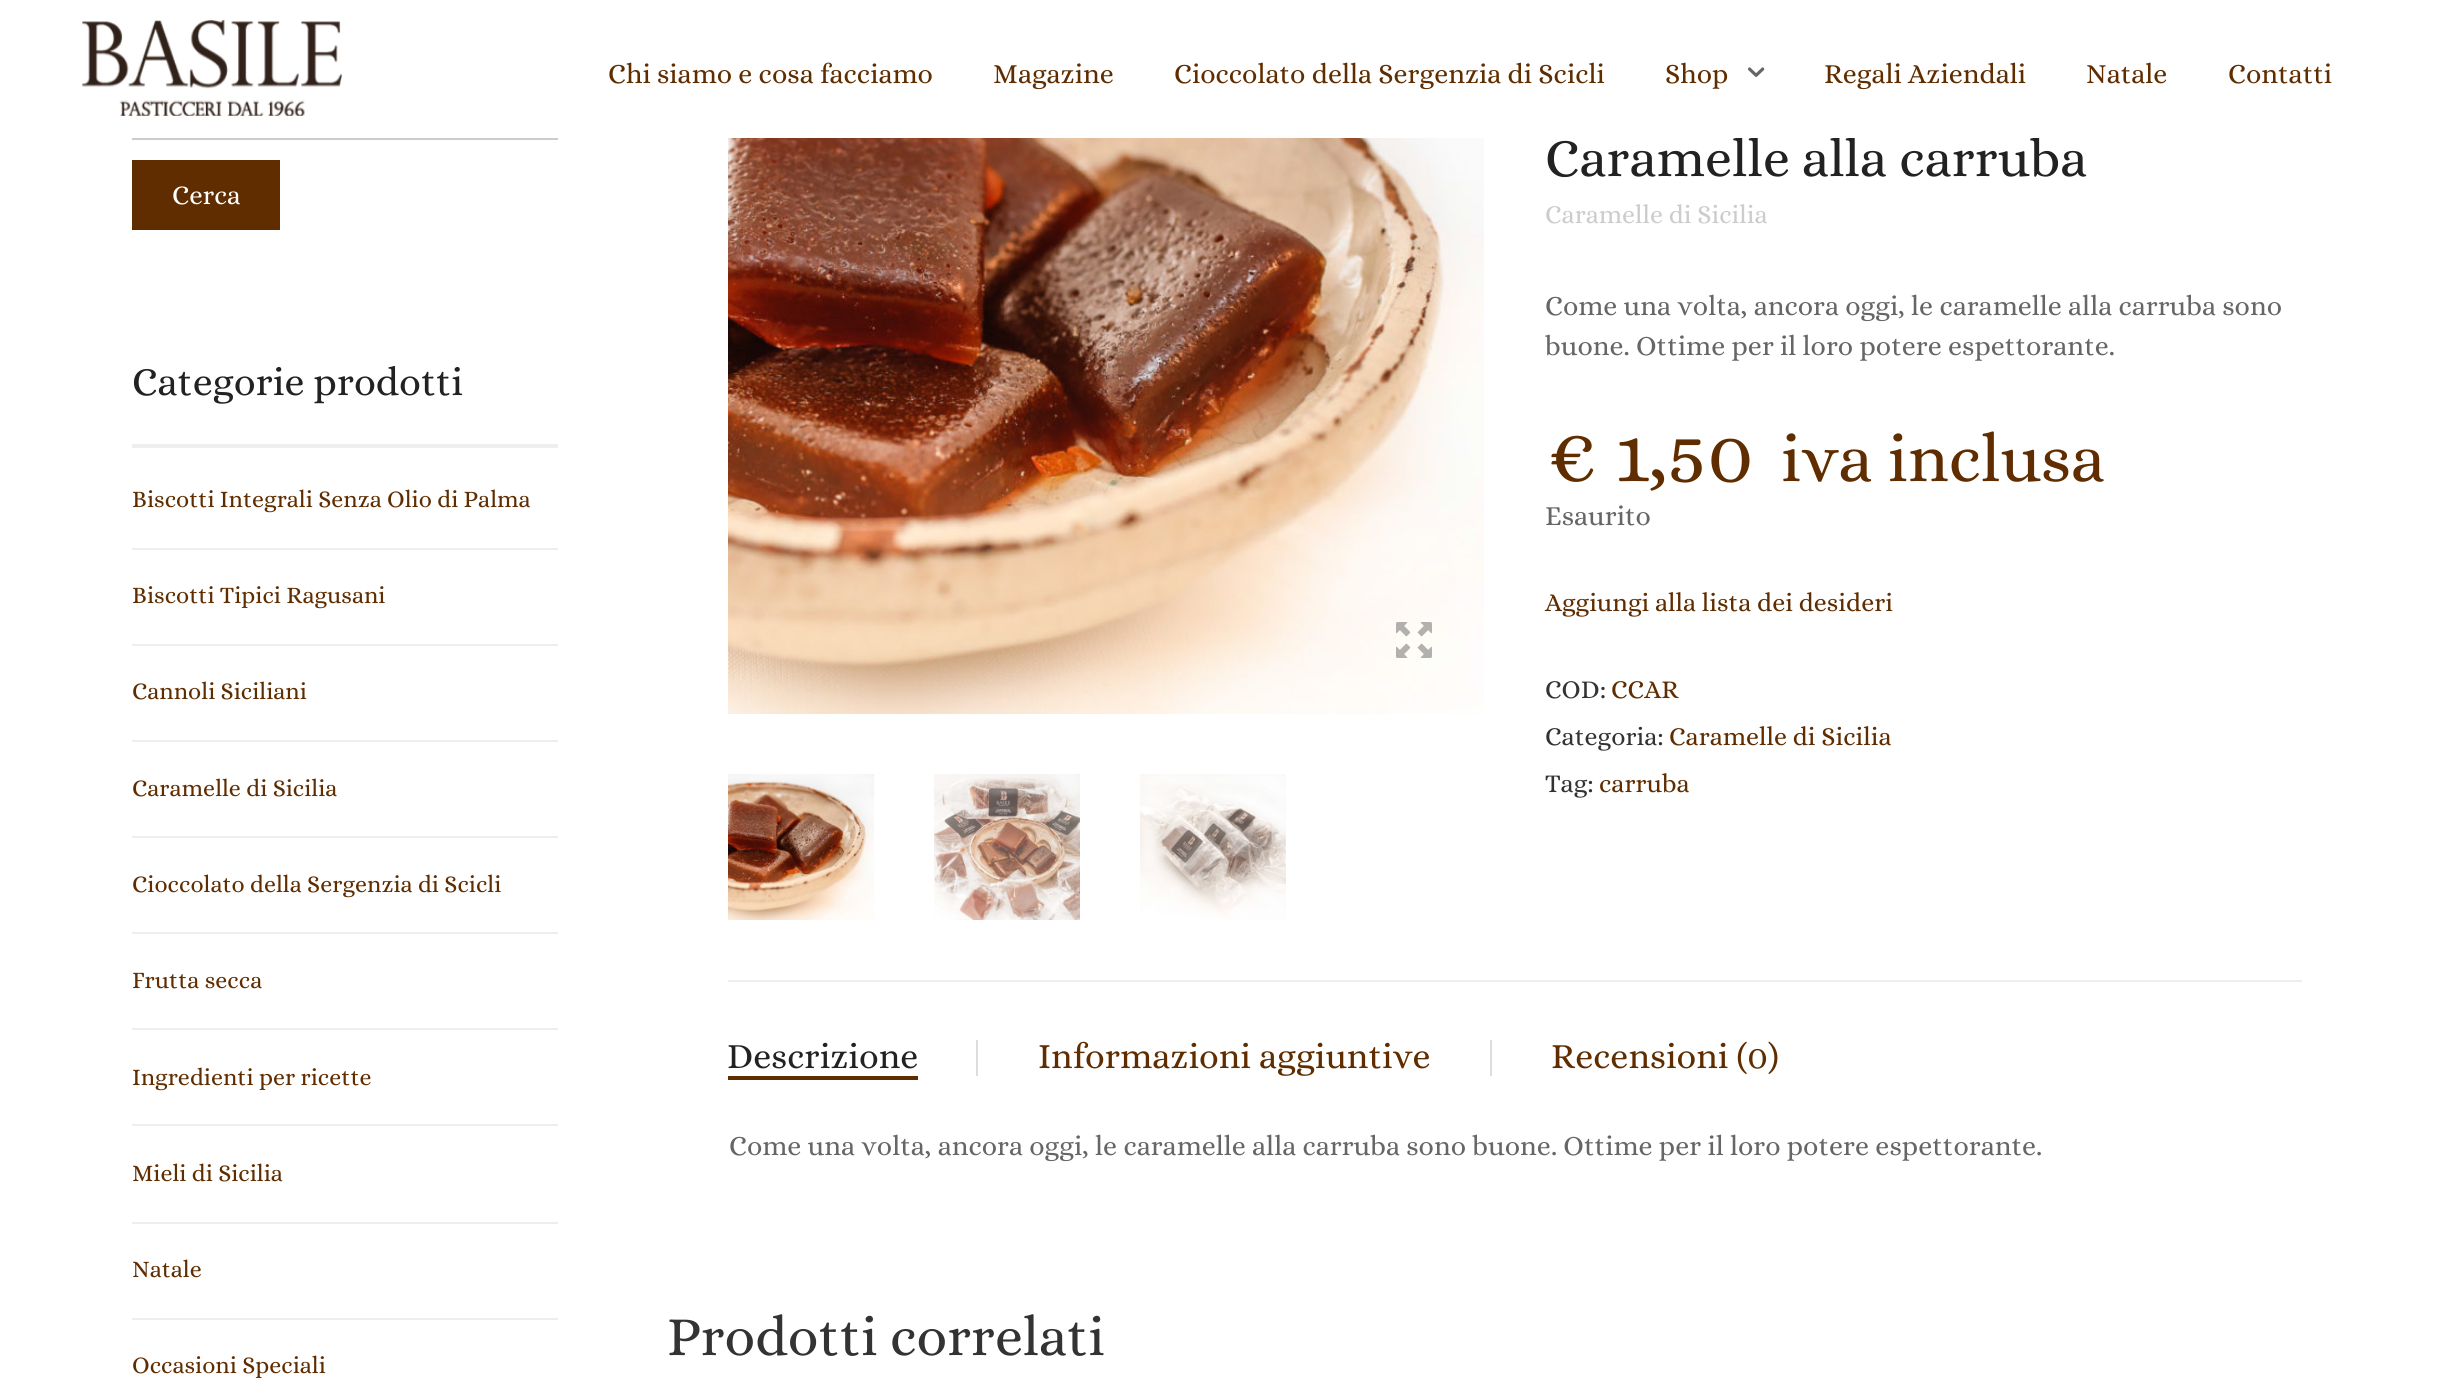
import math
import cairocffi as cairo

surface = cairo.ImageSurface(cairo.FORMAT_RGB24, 2443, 1387)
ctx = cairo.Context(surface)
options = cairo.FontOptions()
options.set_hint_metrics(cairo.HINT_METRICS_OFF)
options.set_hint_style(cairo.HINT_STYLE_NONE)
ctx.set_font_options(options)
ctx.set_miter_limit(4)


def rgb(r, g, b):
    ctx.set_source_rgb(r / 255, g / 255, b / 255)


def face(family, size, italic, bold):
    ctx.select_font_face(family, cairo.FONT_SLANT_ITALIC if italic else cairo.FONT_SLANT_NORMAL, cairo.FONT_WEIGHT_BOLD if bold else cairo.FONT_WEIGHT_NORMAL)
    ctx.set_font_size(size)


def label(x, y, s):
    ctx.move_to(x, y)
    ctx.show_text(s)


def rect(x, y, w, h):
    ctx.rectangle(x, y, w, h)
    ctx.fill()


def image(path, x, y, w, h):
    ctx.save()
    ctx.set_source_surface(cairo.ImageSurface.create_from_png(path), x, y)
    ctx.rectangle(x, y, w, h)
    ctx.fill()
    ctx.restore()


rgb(255, 255, 255)
ctx.paint()
ctx.rectangle(133, 75, 424, 64)
rgb(204, 204, 204)
ctx.stroke()
face('Alice', 54, 0, 0)
rgb(34, 34, 34)
label(1545, 176, 'Caramelle alla carruba')
rgb(255, 255, 255)
rect(132, 74, 1907, 64)
image('image0.png', 82, 20, 260, 96)
face('Alice', 28, 0, 0)
rgb(96, 45, 0)
label(608, 83, 'Chi siamo e cosa facciamo')
label(993, 83, 'Magazine')
label(1174, 83, 'Cioccolato della Sergenzia di Scicli')
label(1665, 83, 'Shop')
image('image1.png', 1748, 67, 17, 10)
label(1824, 83, 'Regali Aziendali')
label(2086, 83, 'Natale')
label(2228, 83, 'Contatti')
rect(132, 160, 148, 70)
face('Alice', 27, 0, 0)
rgb(255, 255, 255)
label(172, 204, 'Cerca')
rgb(238, 238, 238)
rect(132, 444, 426, 4)
face('Alice', 40, 0, 0)
rgb(34, 34, 34)
label(132, 395, 'Categorie prodotti')
rgb(238, 238, 238)
rect(132, 548, 426, 2)
face('Alice', 24, 0, 0)
rgb(96, 45, 0)
label(132, 507, 'Biscotti Integrali Senza Olio di Palma')
rgb(238, 238, 238)
rect(132, 644, 426, 2)
rgb(96, 45, 0)
label(132, 603, 'Biscotti Tipici Ragusani')
rgb(238, 238, 238)
rect(132, 740, 426, 2)
rgb(96, 45, 0)
label(132, 699, 'Cannoli Siciliani')
rgb(238, 238, 238)
rect(132, 836, 426, 2)
rgb(96, 45, 0)
label(132, 796, 'Caramelle di Sicilia')
rgb(238, 238, 238)
rect(132, 932, 426, 2)
rgb(96, 45, 0)
label(132, 892, 'Cioccolato della Sergenzia di Scicli')
rgb(238, 238, 238)
rect(132, 1028, 426, 2)
rgb(96, 45, 0)
label(132, 988, 'Frutta secca')
rgb(238, 238, 238)
rect(132, 1124, 426, 2)
rgb(96, 45, 0)
label(132, 1085, 'Ingredienti per ricette')
rgb(238, 238, 238)
rect(132, 1222, 426, 2)
rgb(96, 45, 0)
label(132, 1181, 'Mieli di Sicilia')
rgb(238, 238, 238)
rect(132, 1318, 426, 2)
rgb(96, 45, 0)
label(132, 1277, 'Natale')
label(132, 1373, 'Occasioni Speciali')
image('image2.png', 728, 138, 756, 576)
image('image3.png', 1396, 622, 36, 36)
image('image4.png', 728, 774, 146, 146)
image('image5.png', 934, 774, 146, 146)
image('image6.png', 1140, 774, 146, 146)
face('Alice', 26, 0, 0)
rgb(204, 204, 204)
label(1545, 223, 'Caramelle di Sicilia')
face('Alice', 28, 0, 0)
rgb(102, 102, 102)
label(1545, 315, 'Come una volta, ancora oggi, le caramelle alla carruba sono')
label(1545, 355, 'buone. Ottime per il loro potere espettorante.')
face('Alice', 80, 0, 0)
rgb(96, 45, 0)
label(1545, 481, '€ 1,50')
face('Alice', 68, 0, 0)
label(1781, 481, 'iva inclusa')
face('Alice', 28, 0, 0)
rgb(102, 102, 102)
label(1545, 525, 'Esaurito')
face('Alice', 26, 0, 0)
rgb(96, 45, 0)
label(1545, 611, 'Aggiungi alla lista dei desideri')
rgb(51, 51, 51)
label(1545, 698, 'COD:')
rgb(96, 45, 0)
label(1611, 698, 'CCAR')
rgb(51, 51, 51)
label(1545, 745, 'Categoria:')
rgb(96, 45, 0)
label(1669, 745, 'Caramelle di Sicilia')
rgb(51, 51, 51)
label(1545, 792, 'Tag:')
rgb(96, 45, 0)
label(1599, 792, 'carruba')
rgb(238, 238, 238)
rect(728, 980, 1574, 2)
face('Alice', 36, 0, 0)
rgb(34, 34, 34)
label(727, 1068, 'Descrizione')
rgb(96, 45, 0)
rect(728, 1076, 190, 4)
rgb(221, 221, 221)
rect(976, 1040, 2, 36)
rgb(96, 45, 0)
label(1038, 1068, 'Informazioni aggiuntive')
rgb(221, 221, 221)
rect(1490, 1040, 2, 36)
rgb(96, 45, 0)
label(1551, 1068, 'Recensioni (0)')
face('Alice', 28, 0, 0)
rgb(102, 102, 102)
label(729, 1155, 'Come una volta, ancora oggi, le caramelle alla carruba sono buone. Ottime per il loro potere espettorante.')
face('Alice', 56, 0, 0)
rgb(51, 51, 51)
label(667, 1355, 'Prodotti correlati')
surface.write_to_png('render.png')
